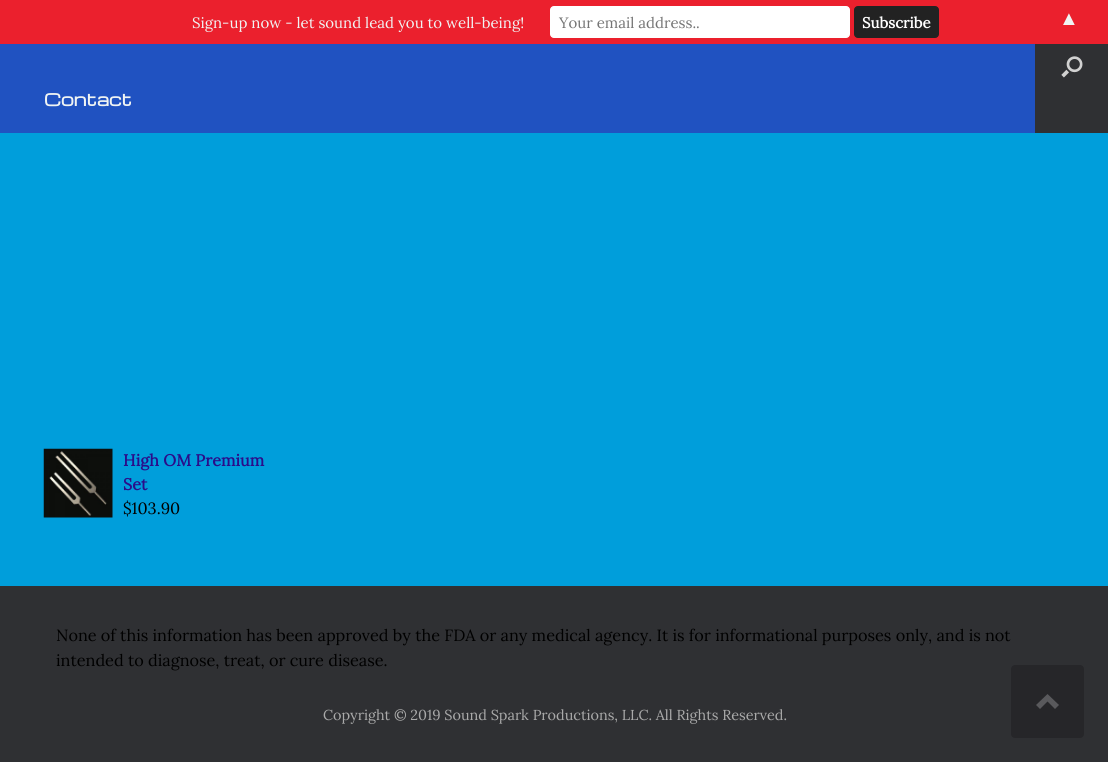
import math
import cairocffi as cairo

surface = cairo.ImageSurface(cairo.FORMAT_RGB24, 1108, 762)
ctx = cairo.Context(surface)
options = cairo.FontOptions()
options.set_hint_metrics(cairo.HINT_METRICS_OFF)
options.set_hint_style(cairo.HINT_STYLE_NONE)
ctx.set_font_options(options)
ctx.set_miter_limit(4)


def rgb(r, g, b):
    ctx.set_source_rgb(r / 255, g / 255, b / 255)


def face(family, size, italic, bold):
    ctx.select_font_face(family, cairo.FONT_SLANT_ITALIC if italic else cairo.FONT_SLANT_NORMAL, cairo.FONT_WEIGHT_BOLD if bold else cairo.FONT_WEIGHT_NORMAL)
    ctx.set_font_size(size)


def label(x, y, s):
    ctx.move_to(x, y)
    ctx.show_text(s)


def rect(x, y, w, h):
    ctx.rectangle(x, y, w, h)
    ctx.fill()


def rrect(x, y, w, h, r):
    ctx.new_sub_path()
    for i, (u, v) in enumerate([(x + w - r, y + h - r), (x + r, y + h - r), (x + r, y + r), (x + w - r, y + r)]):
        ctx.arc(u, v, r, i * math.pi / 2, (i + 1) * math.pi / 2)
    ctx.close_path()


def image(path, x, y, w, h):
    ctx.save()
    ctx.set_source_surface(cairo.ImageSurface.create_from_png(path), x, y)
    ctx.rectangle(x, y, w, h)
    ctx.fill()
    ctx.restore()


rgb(47, 48, 51)
ctx.paint()
rgb(235, 32, 45)
rect(0, 0, 1108, 44)
face('Lora', 15, 0, 0)
rgb(240, 244, 243)
label(192, 28, 'Sign-up now - let sound lead you to well-being!')
rgb(255, 255, 255)
rrect(550.5, 6.5, 299, 31, 3.5)
ctx.fill_preserve()
ctx.set_line_width(1)
ctx.stroke()
rgb(117, 117, 117)
label(559, 28, 'Your email address..')
rgb(34, 34, 34)
rrect(854.5, 6.5, 84, 31, 3.5)
ctx.fill_preserve()
ctx.stroke()
face('Lora', 15, 0, 1)
rgb(255, 255, 255)
label(862, 28, 'Subscribe')
face('Liberation Serif', 20, 0, 0)
rgb(240, 244, 243)
label(1059, 25, '▲')
rgb(32, 82, 193)
rect(0, 44, 1035, 89)
image('image0.png', 1061, 56, 22, 22)
face('Michroma', 16.25, 0, 1)
rgb(240, 244, 243)
label(44, 106, 'Contact')
rgb(0, 158, 219)
rect(0, 133, 1108, 453)
image('image1.png', 43, 448, 70, 70)
face('Lora', 16.25, 0, 1)
rgb(42, 13, 138)
label(123, 466, 'High OM Premium')
label(123, 490, 'Set')
face('Lora', 16.25, 0, 0)
rgb(0, 0, 0)
label(123, 514, '$103.90')
label(56, 641, 'None of this information has been approved by the FDA or any medical agency. It is for informational purposes only, and is not')
label(56, 666, 'intended to diagnose, treat, or cure disease.')
face('Lora', 14.4, 0, 0)
rgb(170, 170, 170)
label(323, 720, 'Copyright © 2019 Sound Spark Productions, LLC. All Rights Reserved.')
rgb(38, 38, 41)
rrect(1011, 665, 73, 73, 4)
ctx.fill()
rgb(89, 89, 92)
ctx.new_path()
ctx.move_to(1059, 705)
ctx.line_to(1047.5, 694)
ctx.line_to(1036, 705)
ctx.line_to(1040, 709)
ctx.line_to(1047.5, 701.5)
ctx.line_to(1055, 709)
ctx.close_path()
ctx.fill()
surface.write_to_png('render.png')
